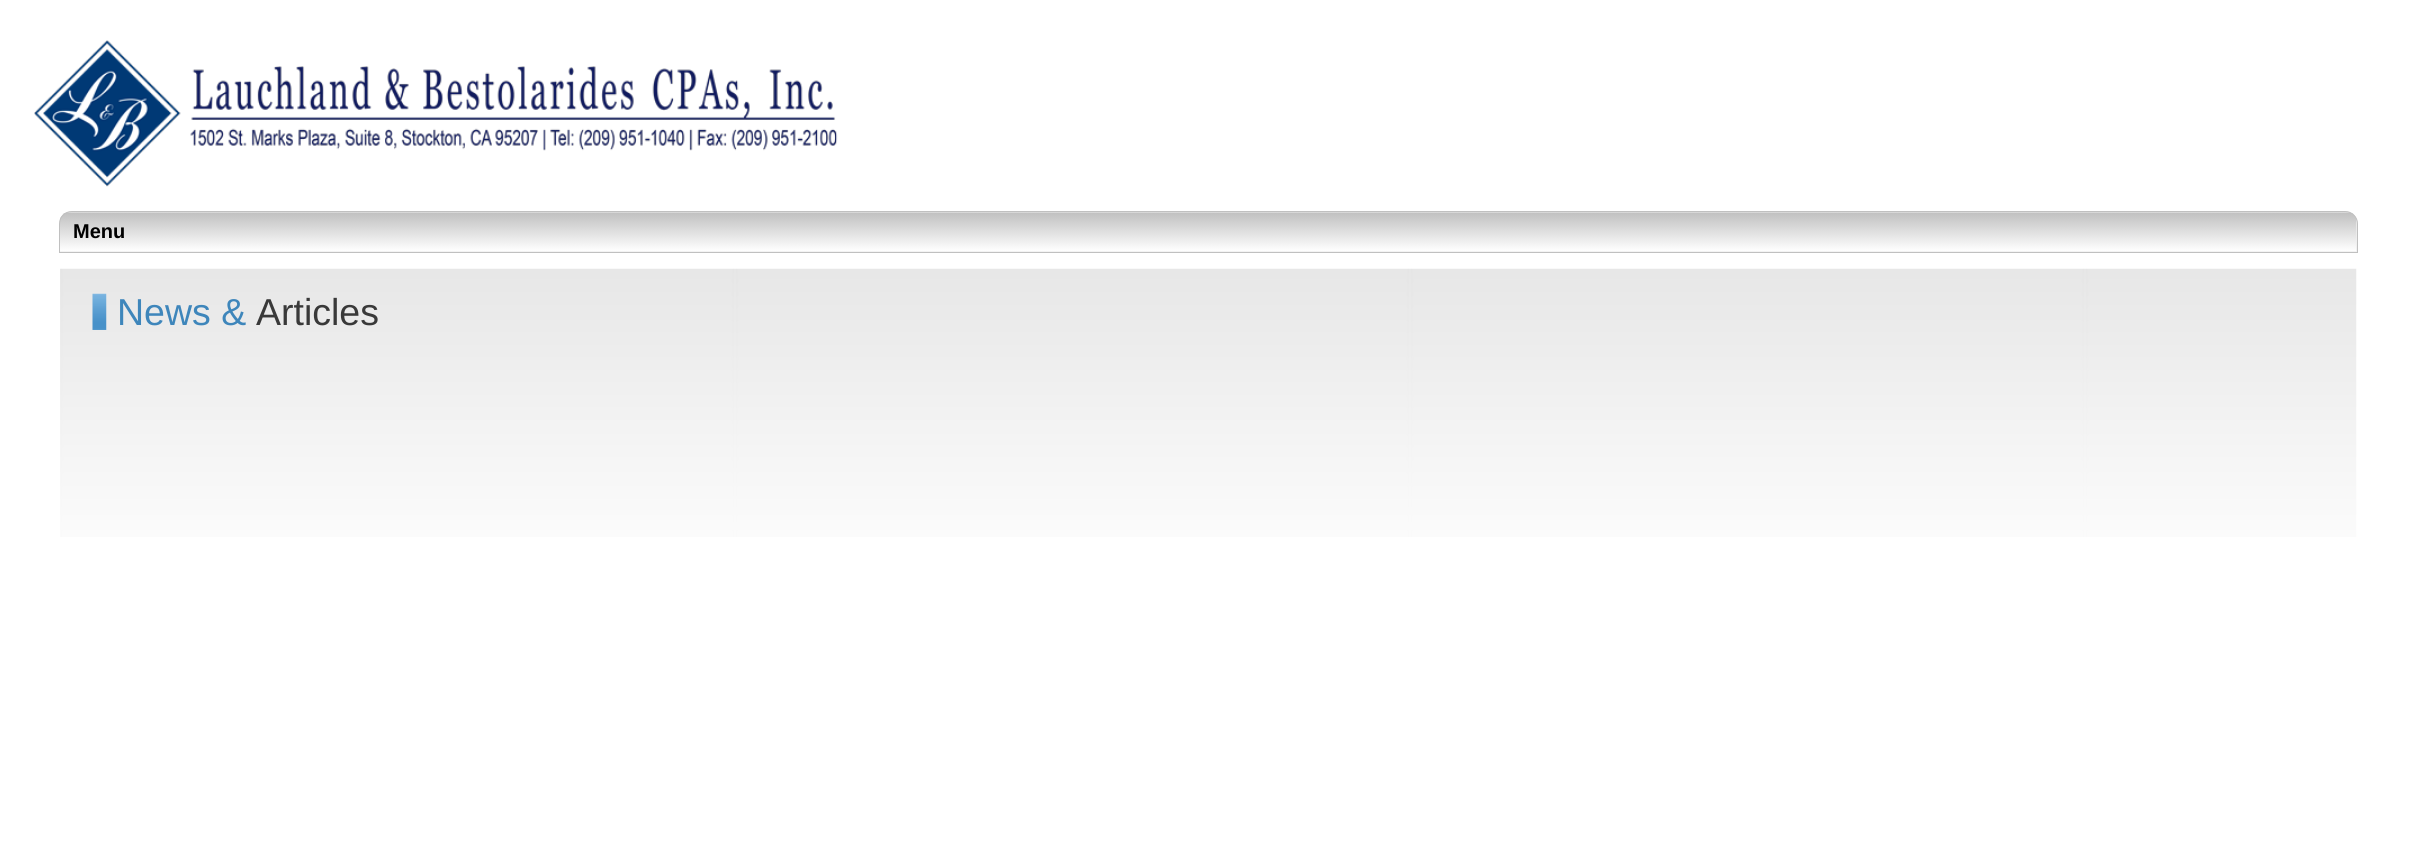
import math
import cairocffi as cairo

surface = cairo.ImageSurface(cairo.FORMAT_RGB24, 2416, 867)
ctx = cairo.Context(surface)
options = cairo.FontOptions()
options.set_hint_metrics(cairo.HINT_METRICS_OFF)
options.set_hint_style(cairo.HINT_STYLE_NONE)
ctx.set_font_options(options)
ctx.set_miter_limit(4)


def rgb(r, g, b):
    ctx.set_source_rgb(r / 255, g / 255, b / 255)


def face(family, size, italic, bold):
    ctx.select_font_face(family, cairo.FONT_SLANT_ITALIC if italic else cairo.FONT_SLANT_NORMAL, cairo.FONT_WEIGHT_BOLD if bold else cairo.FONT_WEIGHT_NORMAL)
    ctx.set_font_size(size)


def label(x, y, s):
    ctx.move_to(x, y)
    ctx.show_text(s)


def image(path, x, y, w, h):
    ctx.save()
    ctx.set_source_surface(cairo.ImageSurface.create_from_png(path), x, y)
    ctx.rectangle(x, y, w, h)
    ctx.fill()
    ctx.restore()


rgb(255, 255, 255)
ctx.paint()
image('image0.png', 34, 40, 804, 147)
rgb(239, 239, 239)
ctx.new_path()
ctx.move_to(72, 211)
ctx.line_to(2345, 211)
ctx.curve_to(2352, 211, 2358, 217, 2358, 224)
ctx.line_to(2358, 253)
ctx.line_to(59, 253)
ctx.line_to(59, 224)
ctx.curve_to(59, 217, 65, 211, 72, 211)
ctx.close_path()
ctx.fill()
image('image1.png', 60, 212, 2297, 40)
ctx.new_path()
ctx.move_to(72, 211.5)
ctx.line_to(2345, 211.5)
ctx.curve_to(2352, 211.5, 2357.5, 217, 2357.5, 224)
ctx.line_to(2357.5, 252.5)
ctx.line_to(59.5, 252.5)
ctx.line_to(59.5, 224)
ctx.curve_to(59.5, 217, 65, 211.5, 72, 211.5)
ctx.close_path()
rgb(192, 192, 192)
ctx.set_line_width(1)
ctx.stroke()
face('Liberation Sans', 20, 0, 1)
rgb(0, 0, 0)
label(73, 238, 'Menu')
image('image2.png', 60, 268, 2297, 269)
image('image3.png', 92, 293, 15, 37)
face('Liberation Sans', 37.5, 0, 0)
rgb(62, 134, 187)
label(117, 325, 'News &')
rgb(57, 57, 57)
label(256, 325, 'Articles')
surface.write_to_png('render.png')
